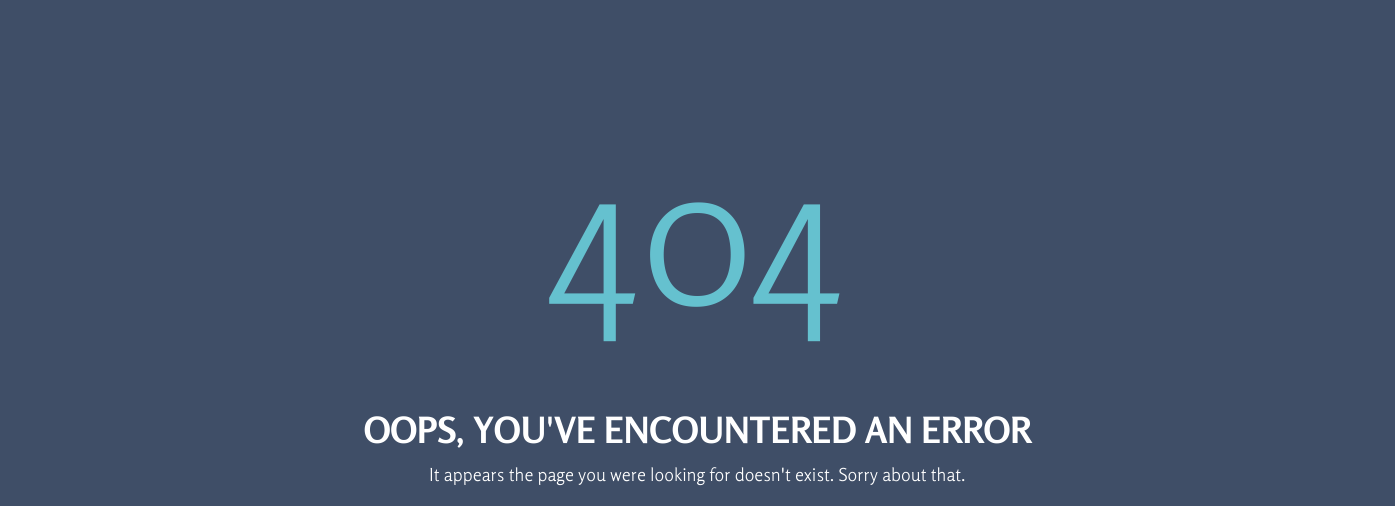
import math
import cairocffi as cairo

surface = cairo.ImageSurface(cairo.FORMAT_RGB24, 1395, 506)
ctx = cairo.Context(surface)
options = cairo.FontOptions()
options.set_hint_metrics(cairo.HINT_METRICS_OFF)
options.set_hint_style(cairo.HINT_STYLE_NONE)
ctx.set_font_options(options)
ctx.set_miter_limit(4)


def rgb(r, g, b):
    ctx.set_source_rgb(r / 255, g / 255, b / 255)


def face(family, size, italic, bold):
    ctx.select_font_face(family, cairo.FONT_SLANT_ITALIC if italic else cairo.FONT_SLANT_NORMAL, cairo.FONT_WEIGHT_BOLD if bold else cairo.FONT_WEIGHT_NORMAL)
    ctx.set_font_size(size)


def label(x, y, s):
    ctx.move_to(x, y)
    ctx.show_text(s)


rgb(63, 78, 103)
ctx.paint()
face('Rosario Light', 200, 0, 0)
rgb(101, 193, 207)
label(552, 304, '404')
face('Rosario', 36, 0, 1)
rgb(255, 255, 255)
label(364, 443, 'OOPS, YOU\'VE ENCOUNTERED AN ERROR')
face('Rosario Light', 18, 0, 0)
label(429, 481, 'It appears the page you were looking for doesn\'t exist. Sorry about that.')
surface.write_to_png('render.png')
